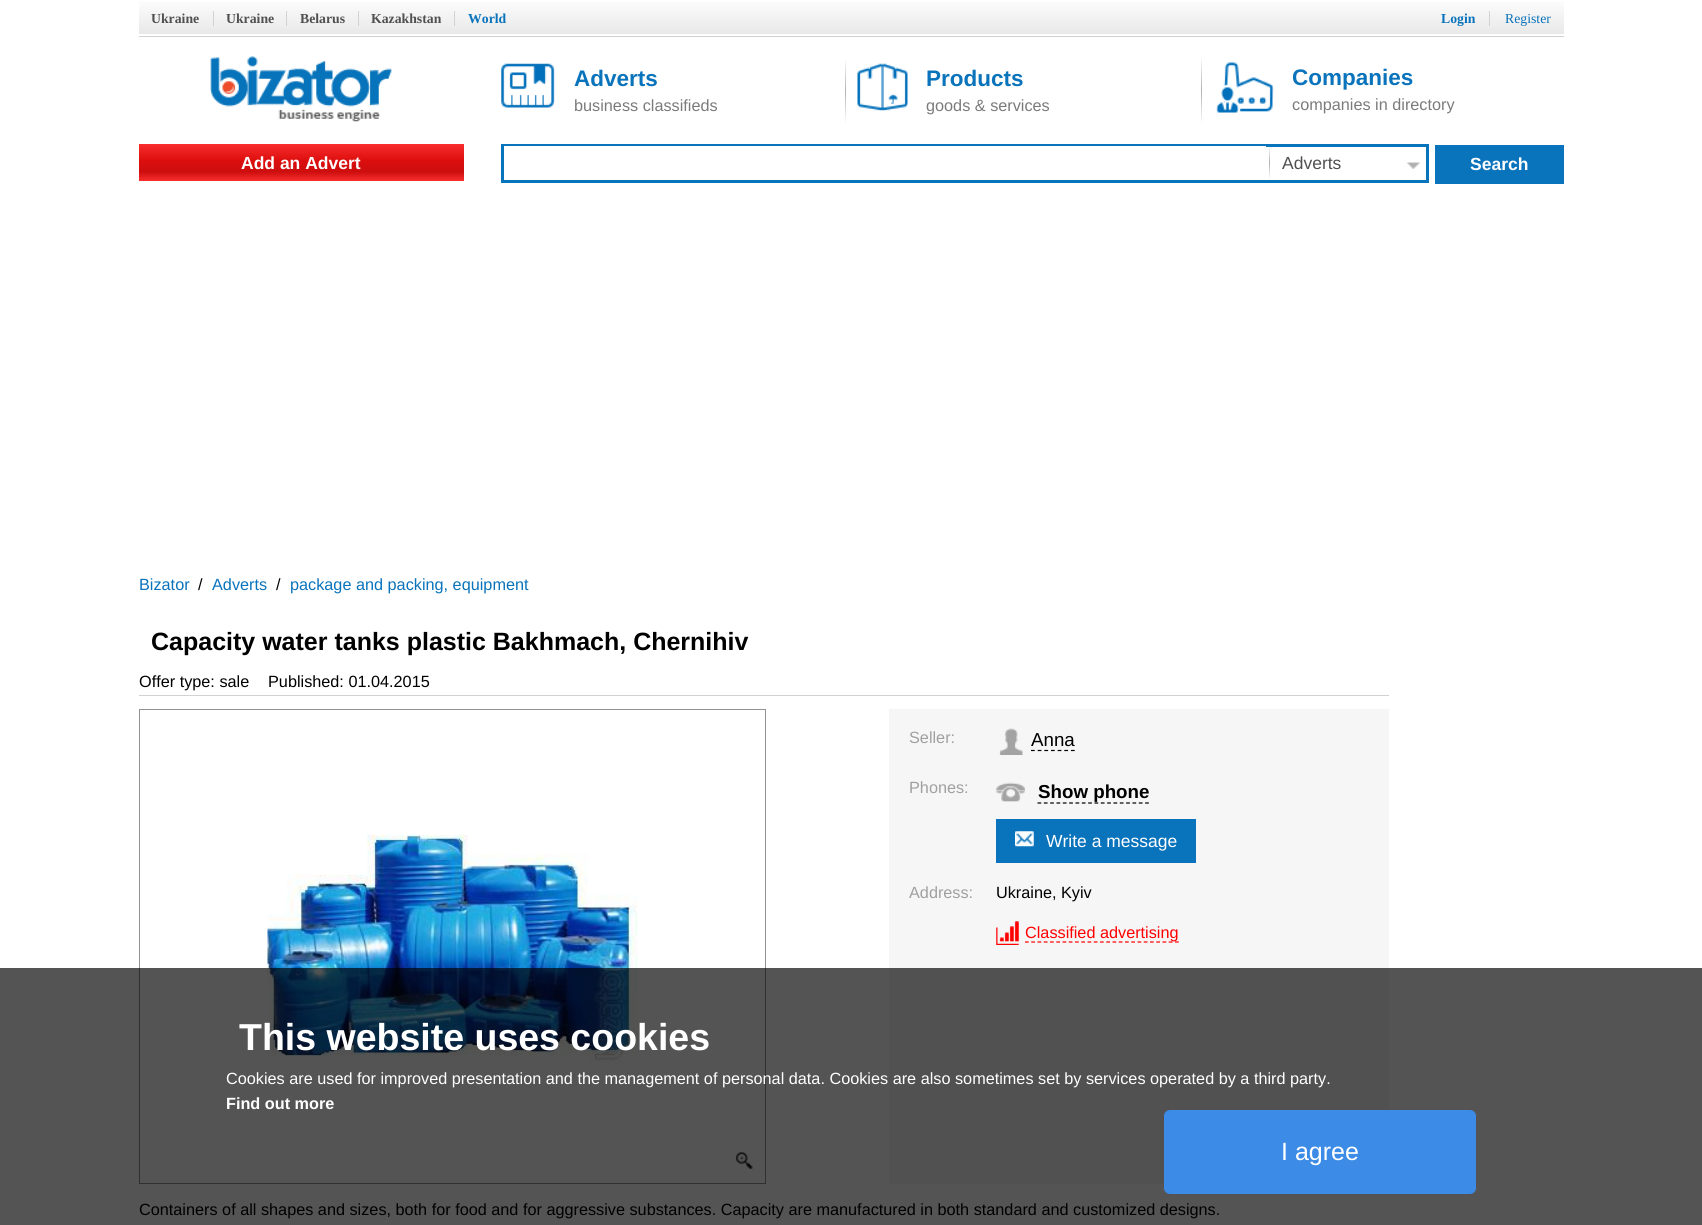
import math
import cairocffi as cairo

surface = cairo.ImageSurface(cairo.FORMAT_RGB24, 1702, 1225)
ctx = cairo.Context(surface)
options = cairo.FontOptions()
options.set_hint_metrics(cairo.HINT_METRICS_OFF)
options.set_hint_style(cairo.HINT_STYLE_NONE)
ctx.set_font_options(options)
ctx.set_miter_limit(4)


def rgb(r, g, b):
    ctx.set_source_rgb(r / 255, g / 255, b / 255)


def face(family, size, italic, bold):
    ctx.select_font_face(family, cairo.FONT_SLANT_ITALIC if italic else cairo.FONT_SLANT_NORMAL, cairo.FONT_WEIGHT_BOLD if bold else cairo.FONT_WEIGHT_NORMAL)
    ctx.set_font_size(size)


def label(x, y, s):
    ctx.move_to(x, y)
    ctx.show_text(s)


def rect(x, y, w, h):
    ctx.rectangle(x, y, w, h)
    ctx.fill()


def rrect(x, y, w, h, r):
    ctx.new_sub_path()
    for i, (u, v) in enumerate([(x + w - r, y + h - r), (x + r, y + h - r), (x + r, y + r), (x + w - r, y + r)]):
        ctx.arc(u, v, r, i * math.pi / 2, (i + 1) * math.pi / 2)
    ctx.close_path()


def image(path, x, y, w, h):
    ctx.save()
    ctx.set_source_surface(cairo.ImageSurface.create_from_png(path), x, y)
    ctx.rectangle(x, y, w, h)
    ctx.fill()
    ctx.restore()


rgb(255, 255, 255)
ctx.paint()
gradient = cairo.LinearGradient(851, 0, 851, 34)
gradient.add_color_stop_rgba(0, 0.992, 0.992, 0.992, 1)
gradient.add_color_stop_rgba(1, 0.91, 0.91, 0.91, 1)
ctx.set_source(gradient)
rect(139, 1, 1425, 33)
rgb(210, 210, 210)
rect(139, 36, 1425, 1)
face('Liberation Serif', 13.75, 0, 1)
rgb(80, 80, 80)
label(151, 23, 'Ukraine')
rgb(210, 210, 210)
rect(213, 11, 1, 15)
rgb(80, 80, 80)
label(226, 23, 'Ukraine')
rgb(210, 210, 210)
rect(286, 11, 1, 15)
rgb(80, 80, 80)
label(300, 23, 'Belarus')
rgb(210, 210, 210)
rect(358, 11, 1, 15)
rgb(80, 80, 80)
label(371, 23, 'Kazakhstan')
rgb(210, 210, 210)
rect(454, 11, 1, 15)
rgb(9, 115, 187)
label(468, 23, 'World')
label(1441, 23, 'Login')
rgb(210, 210, 210)
rect(1489, 11, 1, 15)
face('Liberation Serif', 13.75, 0, 0)
rgb(9, 115, 187)
label(1505, 23, 'Register')
image('image0.png', 210, 56, 183, 66)
image('image1.png', 501, 63, 54, 45)
face('Liberation Sans', 22.5, 0, 1)
label(574, 86, 'Adverts')
face('Liberation Sans', 16.25, 0, 0)
rgb(123, 123, 123)
label(574, 111, 'business classifieds')
gradient = cairo.LinearGradient(846, 58, 846, 124)
gradient.add_color_stop_rgba(0, 1, 1, 1, 1)
gradient.add_color_stop_rgba(0.5, 0.69, 0.69, 0.69, 1)
gradient.add_color_stop_rgba(1, 1, 1, 1, 1)
ctx.set_source(gradient)
rect(845, 58, 1, 66)
image('image2.png', 857, 63, 51, 48)
face('Liberation Sans', 22.5, 0, 1)
rgb(9, 115, 187)
label(926, 86, 'Products')
face('Liberation Sans', 16.25, 0, 0)
rgb(123, 123, 123)
label(926, 111, 'goods & services')
gradient = cairo.LinearGradient(1202, 56, 1202, 125)
gradient.add_color_stop_rgba(0, 1, 1, 1, 1)
gradient.add_color_stop_rgba(0.5, 0.69, 0.69, 0.69, 1)
gradient.add_color_stop_rgba(1, 1, 1, 1, 1)
ctx.set_source(gradient)
rect(1201, 56, 1, 69)
image('image3.png', 1216, 62, 58, 51)
face('Liberation Sans', 22.5, 0, 1)
rgb(9, 115, 187)
label(1292, 85, 'Companies')
face('Liberation Sans', 16.25, 0, 0)
rgb(123, 123, 123)
label(1292, 110, 'companies in directory')
gradient = cairo.LinearGradient(301, 144, 301, 181)
gradient.add_color_stop_rgba(0, 0.98, 0.18, 0.18, 1)
gradient.add_color_stop_rgba(0.45, 0.863, 0.055, 0.055, 1)
gradient.add_color_stop_rgba(0.75, 0.804, 0.055, 0.055, 1)
gradient.add_color_stop_rgba(1, 0.98, 0.18, 0.18, 1)
ctx.set_source(gradient)
rect(139, 144, 325, 37)
face('Liberation Sans', 17.5, 0, 1)
rgb(255, 255, 255)
label(241, 169, 'Add an Advert')
rgb(9, 115, 187)
rect(501, 144, 928, 3)
rect(1426, 144, 3, 39)
rect(501, 180, 928, 3)
rect(501, 144, 3, 39)
rgb(255, 255, 255)
rect(504, 146, 762, 1)
gradient = cairo.LinearGradient(1269, 146, 1269, 179)
gradient.add_color_stop_rgba(0, 0.69, 0.69, 0.69, 0)
gradient.add_color_stop_rgba(0.5, 0.69, 0.69, 0.69, 1)
gradient.add_color_stop_rgba(1, 0.69, 0.69, 0.69, 0)
ctx.set_source(gradient)
rect(1269, 146, 1, 33)
face('Liberation Sans', 17.5, 0, 0)
rgb(80, 80, 80)
label(1282, 169, 'Adverts')
image('image4.png', 1406, 162, 14, 7)
rgb(9, 115, 187)
rect(1435, 145, 129, 39)
face('Liberation Sans', 17.5, 0, 1)
rgb(255, 255, 255)
label(1470, 170, 'Search')
face('Liberation Sans', 16.25, 0, 0)
rgb(9, 115, 187)
label(139, 590, 'Bizator')
rgb(0, 0, 0)
label(198, 590, '/')
rgb(9, 115, 187)
label(212, 590, 'Adverts')
rgb(0, 0, 0)
label(276, 590, '/')
rgb(9, 115, 187)
label(290, 590, 'package and packing, equipment')
face('Liberation Sans', 25, 0, 1)
rgb(0, 0, 0)
label(151, 650, 'Capacity water tanks plastic Bakhmach, Chernihiv')
rgb(210, 210, 210)
rect(139, 695, 1250, 1)
face('Liberation Sans', 16.25, 0, 0)
rgb(0, 0, 0)
label(139, 687, 'Offer type: sale')
label(268, 687, 'Published: 01.04.2015')
ctx.rectangle(139.5, 709.5, 626, 474)
rgb(145, 145, 145)
ctx.set_line_width(1)
ctx.stroke()
image('image5.png', 267, 834, 371, 230)
image('image6.png', 735, 1152, 18, 17)
rgb(246, 246, 246)
rect(889, 709, 500, 475)
rgb(160, 160, 160)
label(909, 743, 'Seller:')
image('image7.png', 999, 728, 24, 27)
face('Liberation Sans', 18.75, 0, 0)
rgb(0, 0, 0)
label(1031, 746, 'Anna')
ctx.new_path()
ctx.move_to(1031, 750.5)
ctx.line_to(1075, 750.5)
ctx.set_line_width(1.2)
ctx.set_dash([3.75, 2.91])
ctx.stroke()
face('Liberation Sans', 16.25, 0, 0)
rgb(160, 160, 160)
label(909, 793, 'Phones:')
image('image8.png', 996, 782, 29, 20)
face('Liberation Sans', 18.75, 0, 1)
rgb(0, 0, 0)
label(1038, 798, 'Show phone')
ctx.new_path()
ctx.move_to(1037.5, 803)
ctx.line_to(1149, 803)
ctx.set_dash([3.75, 2.58])
ctx.stroke()
rgb(9, 115, 187)
rect(996, 819, 200, 44)
image('image9.png', 1015, 831, 19, 16)
face('Liberation Sans', 17.5, 0, 0)
rgb(255, 255, 255)
label(1046, 847, 'Write a message')
face('Liberation Sans', 16.25, 0, 0)
rgb(160, 160, 160)
label(909, 898, 'Address:')
rgb(0, 0, 0)
label(996, 898, 'Ukraine, Kyiv')
image('image10.png', 996, 921, 23, 24)
ctx.new_path()
ctx.move_to(1025, 942)
ctx.line_to(1179, 942)
rgb(255, 0, 0)
ctx.set_dash([3.75, 2.5])
ctx.stroke()
label(1025, 938, 'Classified advertising')
rgb(0, 0, 0)
label(139, 1215, 'Containers of all shapes and sizes, both for food and for aggressive substances. Capacity are manufactured in both standard and customized designs.')
ctx.set_source_rgba(0, 0, 0, 0.67)
rect(0, 968, 1702, 257)
face('Liberation Sans', 37.5, 0, 1)
rgb(255, 255, 255)
label(239, 1050, 'This website uses cookies')
face('Liberation Sans', 16.25, 0, 0)
label(226, 1084, 'Cookies are used for improved presentation and the management of personal data. Cookies are also sometimes set by services operated by a third party.')
face('Liberation Sans', 16.25, 0, 1)
label(226, 1109, 'Find out more')
rgb(59, 139, 231)
rrect(1164, 1110, 312, 84, 6)
ctx.fill()
face('Liberation Sans', 25, 0, 0)
rgb(255, 255, 255)
label(1281, 1160, 'I agree')
surface.write_to_png('render.png')
